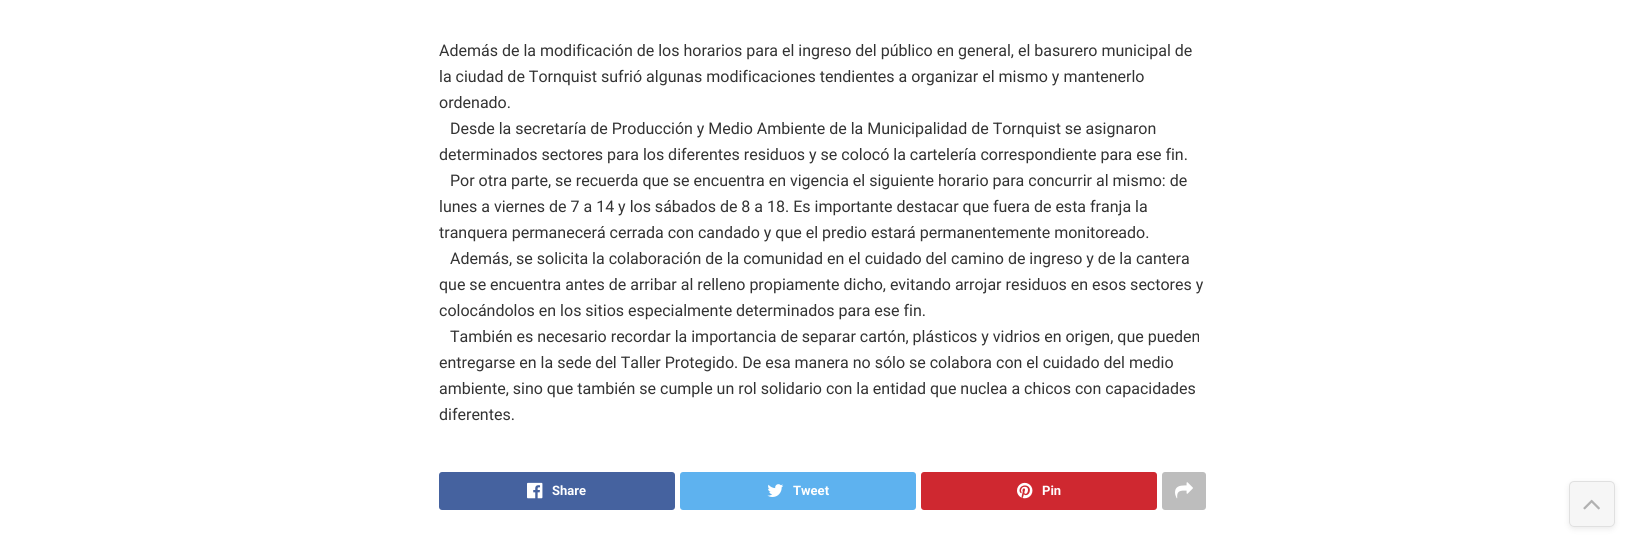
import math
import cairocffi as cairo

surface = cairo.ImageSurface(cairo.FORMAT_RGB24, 1645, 557)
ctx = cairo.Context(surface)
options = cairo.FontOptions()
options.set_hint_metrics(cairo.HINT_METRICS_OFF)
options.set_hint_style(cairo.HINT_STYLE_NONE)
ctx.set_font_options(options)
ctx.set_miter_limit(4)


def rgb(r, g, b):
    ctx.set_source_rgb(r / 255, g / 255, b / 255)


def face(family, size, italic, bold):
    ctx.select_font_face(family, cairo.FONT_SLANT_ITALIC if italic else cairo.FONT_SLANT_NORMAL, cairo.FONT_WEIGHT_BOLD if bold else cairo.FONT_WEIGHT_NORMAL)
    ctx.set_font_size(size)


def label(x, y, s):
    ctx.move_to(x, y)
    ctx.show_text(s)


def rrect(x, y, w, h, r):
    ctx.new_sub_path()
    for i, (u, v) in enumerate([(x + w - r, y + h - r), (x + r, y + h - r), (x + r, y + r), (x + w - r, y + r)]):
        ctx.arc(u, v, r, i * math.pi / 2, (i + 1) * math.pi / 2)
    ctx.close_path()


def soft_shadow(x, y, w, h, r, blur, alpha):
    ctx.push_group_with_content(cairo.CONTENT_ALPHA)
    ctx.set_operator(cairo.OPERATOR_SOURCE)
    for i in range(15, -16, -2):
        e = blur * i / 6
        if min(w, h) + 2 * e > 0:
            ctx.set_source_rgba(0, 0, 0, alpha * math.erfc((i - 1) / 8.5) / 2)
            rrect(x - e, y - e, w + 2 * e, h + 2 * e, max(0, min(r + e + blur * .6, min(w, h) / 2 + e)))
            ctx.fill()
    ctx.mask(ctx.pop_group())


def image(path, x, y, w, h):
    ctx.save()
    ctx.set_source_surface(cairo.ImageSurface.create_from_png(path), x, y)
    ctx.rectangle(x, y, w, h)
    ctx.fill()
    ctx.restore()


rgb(255, 255, 255)
ctx.paint()
face('Roboto', 16, 0, 0)
rgb(51, 51, 51)
label(439, 56, 'Además de la modificación de los horarios para el ingreso del público en general, el basurero municipal de')
label(439, 82, 'la ciudad de Tornquist sufrió algunas modificaciones tendientes a organizar el mismo y mantenerlo')
label(439, 108, 'ordenado.')
label(450, 134, 'Desde la secretaría de Producción y Medio Ambiente de la Municipalidad de Tornquist se asignaron')
label(439, 160, 'determinados sectores para los diferentes residuos y se colocó la cartelería correspondiente para ese fin.')
label(450, 186, 'Por otra parte, se recuerda que se encuentra en vigencia el siguiente horario para concurrir al mismo: de')
label(439, 212, 'lunes a viernes de 7 a 14 y los sábados de 8 a 18. Es importante destacar que fuera de esta franja la')
label(439, 238, 'tranquera permanecerá cerrada con candado y que el predio estará permanentemente monitoreado.')
label(450, 264, 'Además, se solicita la colaboración de la comunidad en el cuidado del camino de ingreso y de la cantera')
label(439, 290, 'que se encuentra antes de arribar al relleno propiamente dicho, evitando arrojar residuos en esos sectores y')
label(439, 316, 'colocándolos en los sitios especialmente determinados para ese fin.')
label(450, 342, 'También es necesario recordar la importancia de separar cartón, plásticos y vidrios en origen, que pueden')
label(439, 368, 'entregarse en la sede del Taller Protegido. De esa manera no sólo se colabora con el cuidado del medio')
label(439, 394, 'ambiente, sino que también se cumple un rol solidario con la entidad que nuclea a chicos con capacidades')
label(439, 420, 'diferentes.')
rgb(69, 98, 159)
rrect(439, 472, 236, 38, 3)
ctx.fill()
image('image0.png', 527, 482, 16, 17)
face('Roboto', 13, 0, 1)
rgb(255, 255, 255)
label(552, 495, 'Share')
rgb(94, 178, 239)
rrect(680, 472, 236, 38, 3)
ctx.fill()
image('image1.png', 767, 484, 17, 13)
rgb(255, 255, 255)
label(793, 495, 'Tweet')
rgb(207, 40, 48)
rrect(921, 472, 236, 38, 3)
ctx.fill()
image('image2.png', 1017, 482, 16, 17)
rgb(255, 255, 255)
label(1042, 495, 'Pin')
rgb(189, 189, 189)
rrect(1162, 472, 44, 38, 3)
ctx.fill()
image('image3.png', 1175, 482, 18, 17)
ctx.save()
ctx.set_fill_rule(cairo.FILL_RULE_EVEN_ODD)
ctx.new_path()
ctx.move_to(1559, 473)
ctx.line_to(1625, 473)
ctx.line_to(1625, 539)
ctx.line_to(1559, 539)
ctx.close_path()
ctx.move_to(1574, 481)
ctx.line_to(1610, 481)
ctx.curve_to(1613, 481, 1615, 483, 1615, 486)
ctx.line_to(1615, 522)
ctx.curve_to(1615, 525, 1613, 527, 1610, 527)
ctx.line_to(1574, 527)
ctx.curve_to(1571, 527, 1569, 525, 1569, 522)
ctx.line_to(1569, 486)
ctx.curve_to(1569, 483, 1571, 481, 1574, 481)
ctx.close_path()
ctx.clip()
rgb(51, 51, 51)
soft_shadow(1569, 483, 46, 46, 5, 3, 0.1)
ctx.restore()
ctx.set_source_rgba(0.769, 0.769, 0.769, 0.15)
rrect(1569, 481, 46, 46, 5)
ctx.fill()
rrect(1569.5, 481.5, 45, 45, 4.5)
ctx.set_source_rgba(0.2, 0.2, 0.2, 0.11)
ctx.set_line_width(1)
ctx.stroke()
image('image4.png', 1583, 499, 17, 11)
surface.write_to_png('render.png')
